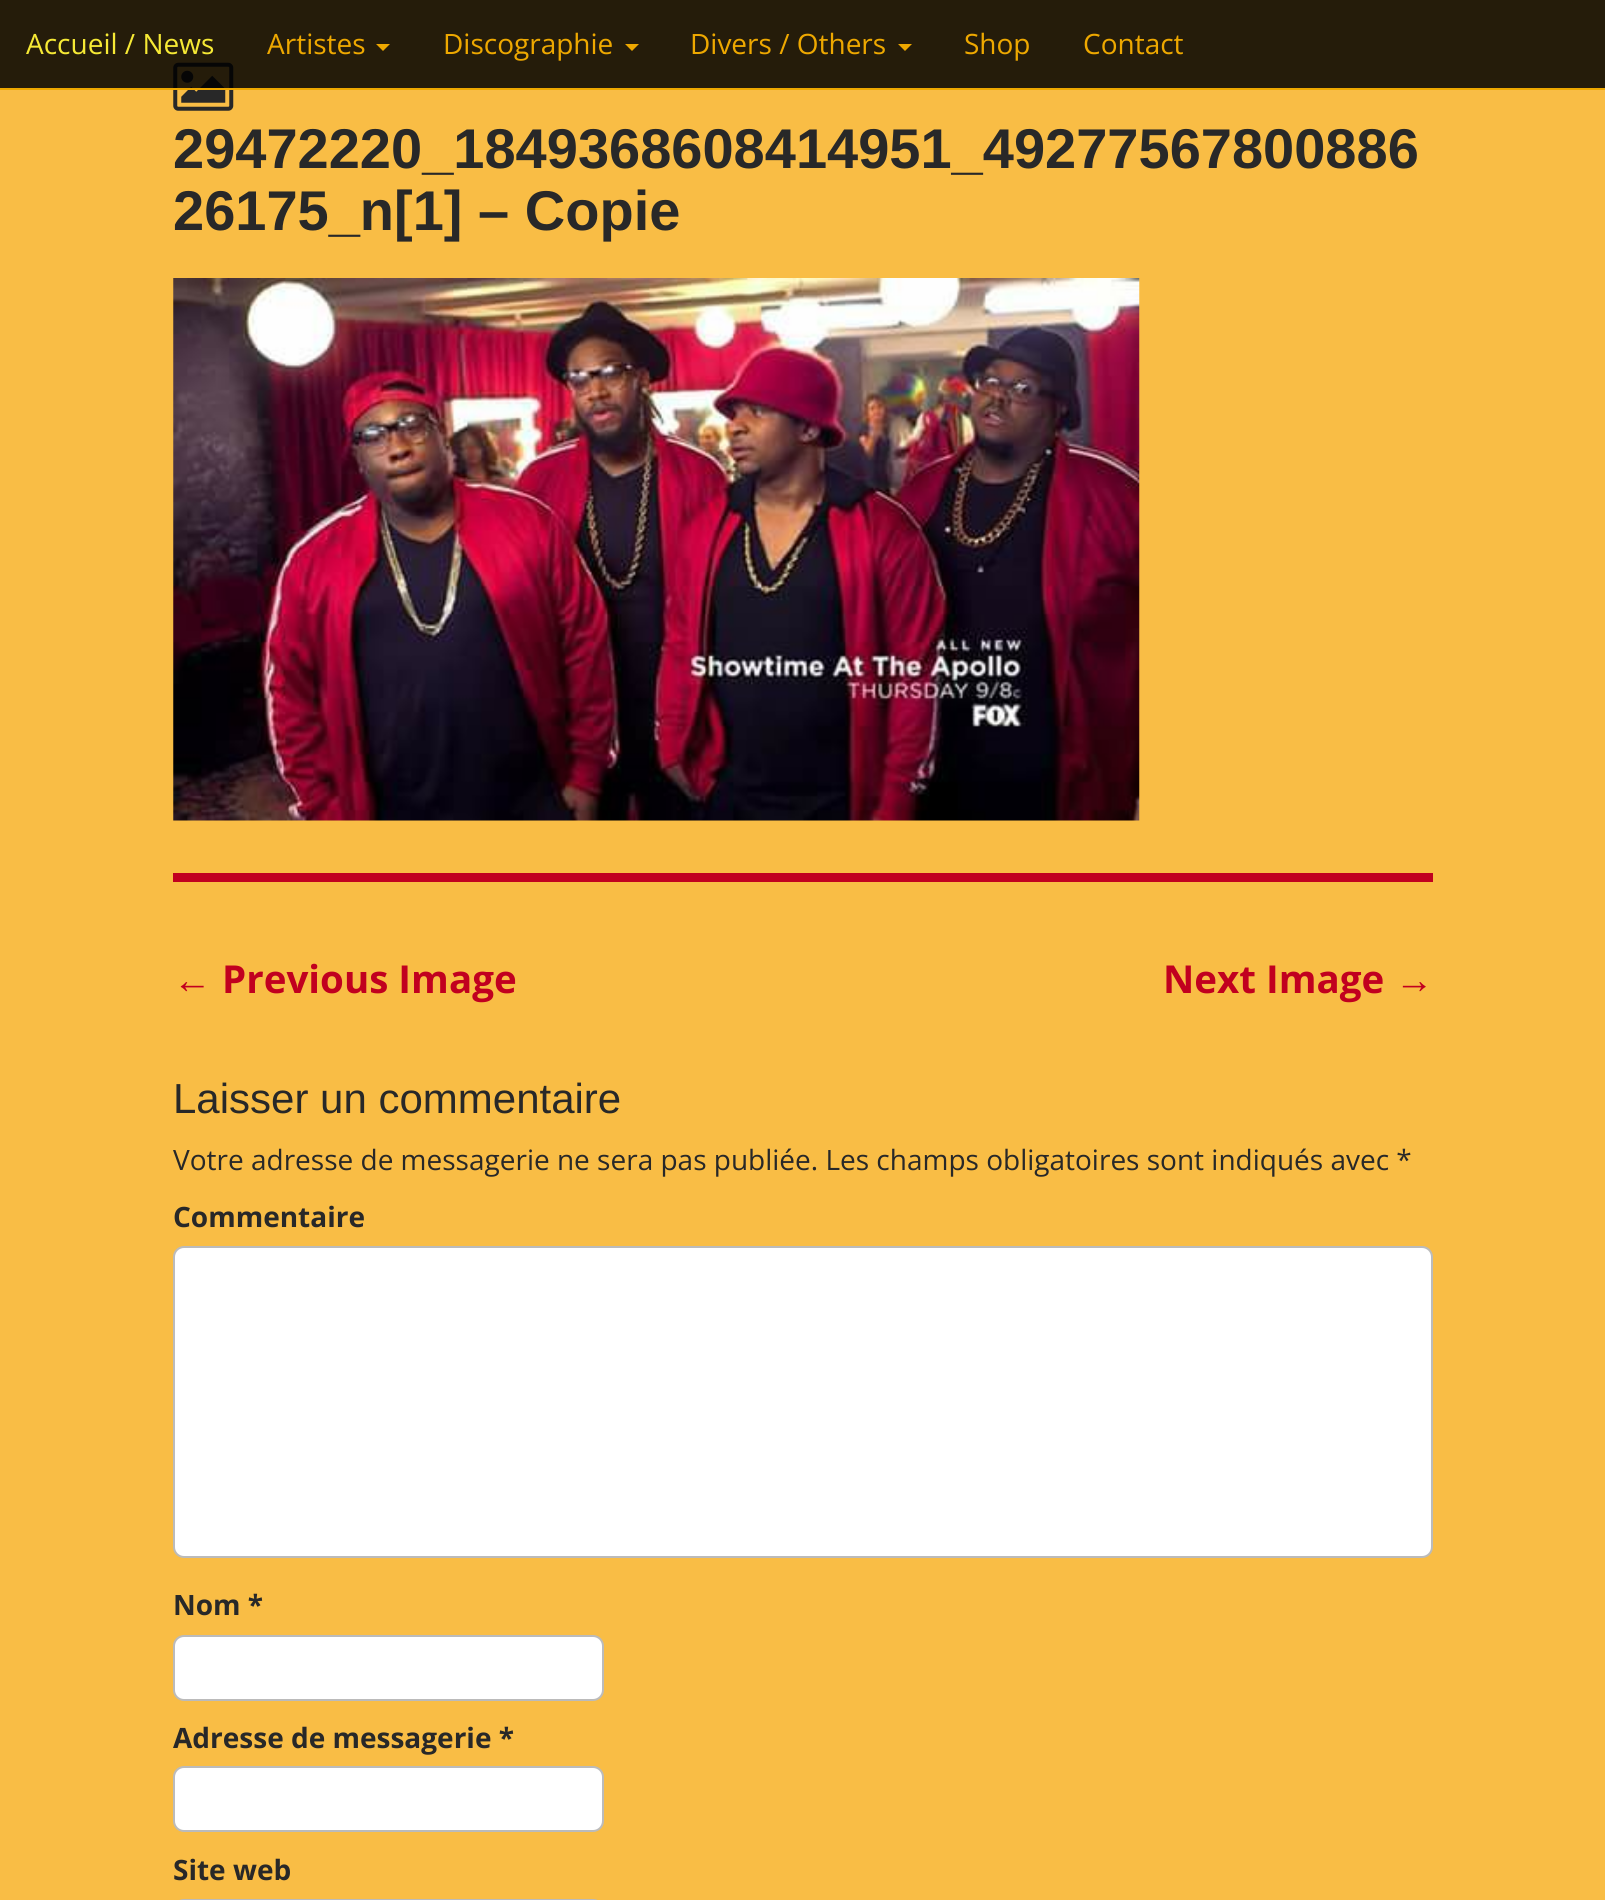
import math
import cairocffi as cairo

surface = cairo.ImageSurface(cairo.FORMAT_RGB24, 1605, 1900)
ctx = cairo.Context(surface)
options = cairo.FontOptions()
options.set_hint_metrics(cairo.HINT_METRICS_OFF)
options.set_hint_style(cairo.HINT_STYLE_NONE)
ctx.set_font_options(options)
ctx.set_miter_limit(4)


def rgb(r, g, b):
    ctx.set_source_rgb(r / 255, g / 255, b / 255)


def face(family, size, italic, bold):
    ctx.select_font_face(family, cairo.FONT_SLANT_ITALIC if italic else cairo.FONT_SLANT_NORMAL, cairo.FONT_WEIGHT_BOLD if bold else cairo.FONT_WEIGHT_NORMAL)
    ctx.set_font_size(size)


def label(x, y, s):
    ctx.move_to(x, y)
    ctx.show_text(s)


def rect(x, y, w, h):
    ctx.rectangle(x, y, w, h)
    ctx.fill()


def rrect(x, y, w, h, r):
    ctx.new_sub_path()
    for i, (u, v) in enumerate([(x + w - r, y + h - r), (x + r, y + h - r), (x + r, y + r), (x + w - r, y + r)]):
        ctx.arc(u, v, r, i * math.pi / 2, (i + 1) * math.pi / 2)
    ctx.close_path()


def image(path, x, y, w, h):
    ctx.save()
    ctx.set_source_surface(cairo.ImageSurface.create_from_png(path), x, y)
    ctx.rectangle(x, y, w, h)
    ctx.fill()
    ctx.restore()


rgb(249, 189, 69)
ctx.paint()
image('image0.png', 173, 62, 61, 49)
ctx.set_source_rgba(0, 0, 0, 0.85)
rect(0, 0, 1605, 88)
rgb(238, 168, 0)
rect(0, 88, 1605, 2)
face('Open Sans', 28, 0, 0)
rgb(246, 233, 53)
label(26, 54, 'Accueil / News')
rgb(238, 168, 0)
label(267, 54, 'Artistes')
ctx.new_path()
ctx.move_to(376, 44)
ctx.line_to(390, 44)
ctx.line_to(383, 51)
ctx.close_path()
ctx.fill()
label(443, 54, 'Discographie')
ctx.new_path()
ctx.move_to(625, 44)
ctx.line_to(639, 44)
ctx.line_to(632, 51)
ctx.close_path()
ctx.fill()
label(690, 54, 'Divers / Others')
ctx.new_path()
ctx.move_to(898, 44)
ctx.line_to(912, 44)
ctx.line_to(905, 51)
ctx.close_path()
ctx.fill()
label(964, 54, 'Shop')
label(1083, 54, 'Contact')
rgb(193, 0, 31)
rect(173, 873, 1260, 9)
face('Liberation Sans', 56, 0, 1)
rgb(40, 40, 40)
label(173, 168, '29472220_1849368608414951_49277567800886')
label(173, 230, '26175_n[1] – Copie')
image('image1.png', 173, 278, 967, 543)
face('Liberation Sans', 38.5, 0, 1)
rgb(193, 0, 31)
label(173, 993, '←')
face('Open Sans', 38.5, 0, 1)
label(222, 993, 'Previous Image')
label(1163, 993, 'Next Image')
face('Liberation Sans', 38.5, 0, 1)
label(1395, 993, '→')
face('Liberation Sans', 42, 0, 0)
rgb(40, 40, 40)
label(173, 1113, 'Laisser un commentaire')
face('Open Sans', 28, 0, 0)
label(173, 1170, 'Votre adresse de messagerie ne sera pas publiée. Les champs obligatoires sont indiqués avec *')
face('Open Sans', 28, 0, 1)
label(173, 1227, 'Commentaire')
rgb(255, 255, 255)
rrect(174, 1247, 1258, 310, 10)
ctx.fill_preserve()
rgb(187, 187, 187)
ctx.stroke()
rgb(40, 40, 40)
label(173, 1615, 'Nom *')
rgb(255, 255, 255)
rrect(174, 1636, 429, 64, 10)
ctx.fill_preserve()
rgb(187, 187, 187)
ctx.stroke()
rgb(40, 40, 40)
label(173, 1748, 'Adresse de messagerie *')
rgb(255, 255, 255)
rrect(174, 1767, 429, 64, 10)
ctx.fill_preserve()
rgb(187, 187, 187)
ctx.stroke()
rgb(40, 40, 40)
label(173, 1880, 'Site web')
rrect(174, 1900, 429, 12, 10)
rgb(187, 187, 187)
ctx.stroke()
surface.write_to_png('render.png')
